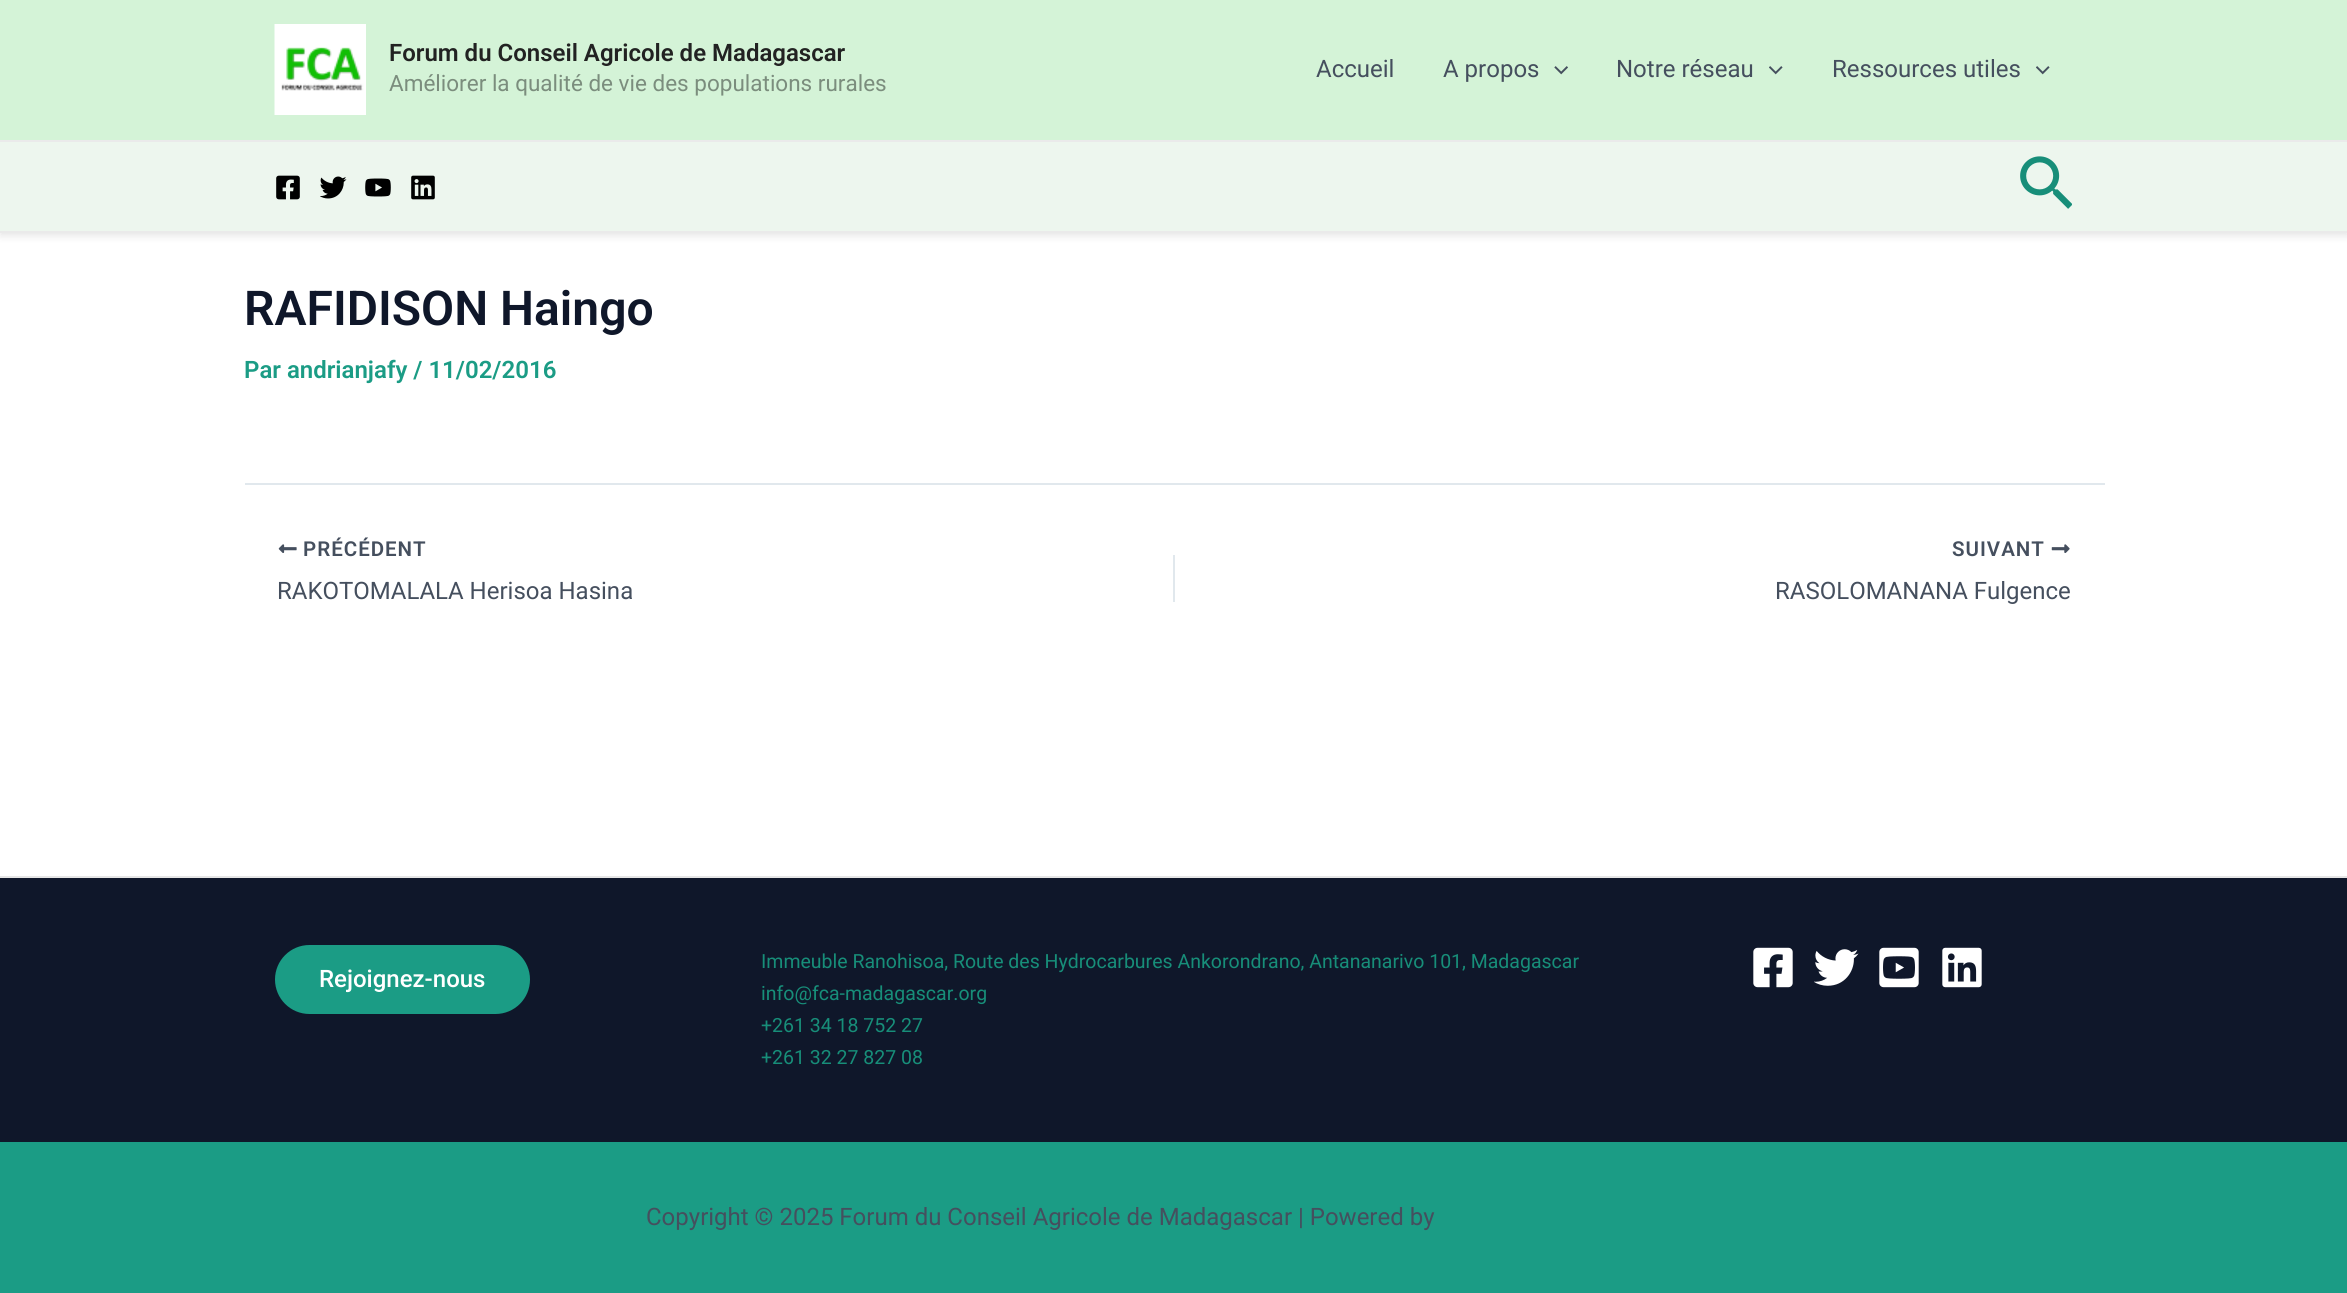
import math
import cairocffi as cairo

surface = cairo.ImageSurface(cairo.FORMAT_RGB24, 2347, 1293)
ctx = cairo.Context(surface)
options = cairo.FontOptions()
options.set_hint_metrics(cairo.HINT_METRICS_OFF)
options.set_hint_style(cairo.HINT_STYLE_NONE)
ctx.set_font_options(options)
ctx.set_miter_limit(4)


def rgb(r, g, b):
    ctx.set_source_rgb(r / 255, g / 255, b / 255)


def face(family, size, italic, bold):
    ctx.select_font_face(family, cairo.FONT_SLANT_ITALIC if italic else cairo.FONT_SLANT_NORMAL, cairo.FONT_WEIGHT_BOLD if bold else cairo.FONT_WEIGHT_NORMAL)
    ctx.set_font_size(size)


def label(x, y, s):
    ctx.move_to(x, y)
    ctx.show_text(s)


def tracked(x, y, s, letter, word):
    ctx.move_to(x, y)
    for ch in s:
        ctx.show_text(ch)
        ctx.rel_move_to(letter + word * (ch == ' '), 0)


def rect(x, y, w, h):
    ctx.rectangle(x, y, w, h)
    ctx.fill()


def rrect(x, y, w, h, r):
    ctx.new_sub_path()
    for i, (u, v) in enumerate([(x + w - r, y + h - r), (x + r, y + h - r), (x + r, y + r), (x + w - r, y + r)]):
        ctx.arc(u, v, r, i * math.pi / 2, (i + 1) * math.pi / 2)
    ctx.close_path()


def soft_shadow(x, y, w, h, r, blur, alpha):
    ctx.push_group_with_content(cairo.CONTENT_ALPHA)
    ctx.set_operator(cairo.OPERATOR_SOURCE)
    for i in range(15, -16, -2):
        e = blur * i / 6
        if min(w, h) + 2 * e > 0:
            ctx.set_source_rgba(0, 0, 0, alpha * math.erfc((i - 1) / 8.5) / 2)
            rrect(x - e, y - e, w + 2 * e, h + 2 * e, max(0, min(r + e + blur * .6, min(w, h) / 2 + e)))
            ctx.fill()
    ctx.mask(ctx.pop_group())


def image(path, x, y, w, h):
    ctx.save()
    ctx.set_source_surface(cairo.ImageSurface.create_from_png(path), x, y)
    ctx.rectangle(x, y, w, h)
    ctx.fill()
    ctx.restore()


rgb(255, 255, 255)
ctx.paint()
rgb(0, 0, 0)
soft_shadow(0, 3, 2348, 233, 0, 4, 0.1)
rgb(212, 243, 215)
rect(0, 0, 2347, 140)
rgb(234, 234, 234)
rect(0, 140, 2347, 2)
image('image0.png', 274, 24, 92, 91)
face('Roboto SemiBold', 24, 0, 0)
rgb(34, 34, 34)
label(389, 61, 'Forum du Conseil Agricole de Madagascar')
face('Roboto', 22.5, 0, 0)
rgb(123, 141, 125)
label(389, 91, 'Améliorer la qualité de vie des populations rurales')
face('Roboto', 24, 0, 0)
rgb(69, 79, 94)
label(1316, 77, 'Accueil')
label(1443, 77, 'A propos')
image('image1.png', 1554, 66, 14, 9)
label(1616, 77, 'Notre réseau')
image('image2.png', 1769, 66, 14, 9)
label(1832, 77, 'Ressources utiles')
image('image2.png', 2036, 66, 14, 9)
rgb(237, 246, 238)
rect(0, 142, 2347, 89)
rgb(234, 234, 234)
rect(0, 231, 2347, 2)
image('image3.png', 276, 175, 24, 25)
image('image4.png', 320, 176, 27, 23)
image('image5.png', 365, 178, 26, 19)
image('image6.png', 411, 175, 24, 25)
image('image7.png', 2020, 156, 52, 53)
face('Roboto SemiBold', 48, 0, 0)
rgb(15, 23, 42)
label(244, 325, 'RAFIDISON Haingo')
face('Roboto SemiBold', 24, 0, 0)
rgb(27, 156, 133)
label(244, 378, 'Par andrianjafy / 11/02/2016')
rgb(225, 232, 237)
rect(245, 483, 1860, 2)
image('image8.png', 278, 544, 19, 9)
face('Roboto SemiBold', 20.5, 0, 0)
rgb(69, 79, 94)
tracked(303, 556, 'PRÉCÉDENT', 1, 0)
face('Roboto', 24, 0, 0)
label(277, 599, 'RAKOTOMALALA Herisoa Hasina')
rgb(225, 232, 237)
rect(1173, 555, 2, 47)
face('Roboto SemiBold', 20.5, 0, 0)
rgb(69, 79, 94)
tracked(1952, 556, 'SUIVANT', 1, 0)
image('image9.png', 2051, 544, 19, 9)
face('Roboto', 24, 0, 0)
label(1775, 599, 'RASOLOMANANA Fulgence')
rgb(27, 156, 133)
rect(0, 1142, 2347, 151)
rgb(15, 23, 42)
rect(0, 878, 2347, 264)
rgb(230, 230, 230)
rect(0, 876, 2347, 2)
rgb(27, 156, 133)
rrect(275, 945, 255, 69, 34.5)
ctx.fill()
face('Roboto Medium', 24, 0, 0)
rgb(255, 255, 255)
label(319, 987, 'Rejoignez-nous')
face('Roboto', 19.5, 0, 0)
rgb(23, 142, 121)
label(761, 968, 'Immeuble Ranohisoa, Route des Hydrocarbures Ankorondrano, Antananarivo 101, Madagascar')
label(761, 1000, 'info@fca-madagascar.org')
label(761, 1032, '+261 34 18 752 27')
label(761, 1064, '+261 32 27 827 08')
image('image10.png', 1753, 947, 40, 41)
image('image11.png', 1814, 949, 45, 37)
image('image12.png', 1879, 947, 40, 41)
image('image13.png', 1942, 947, 40, 41)
face('Roboto', 24, 0, 0)
rgb(69, 79, 94)
label(646, 1225, 'Copyright © 2025 Forum du Conseil Agricole de Madagascar | Powered by')
surface.write_to_png('render.png')
